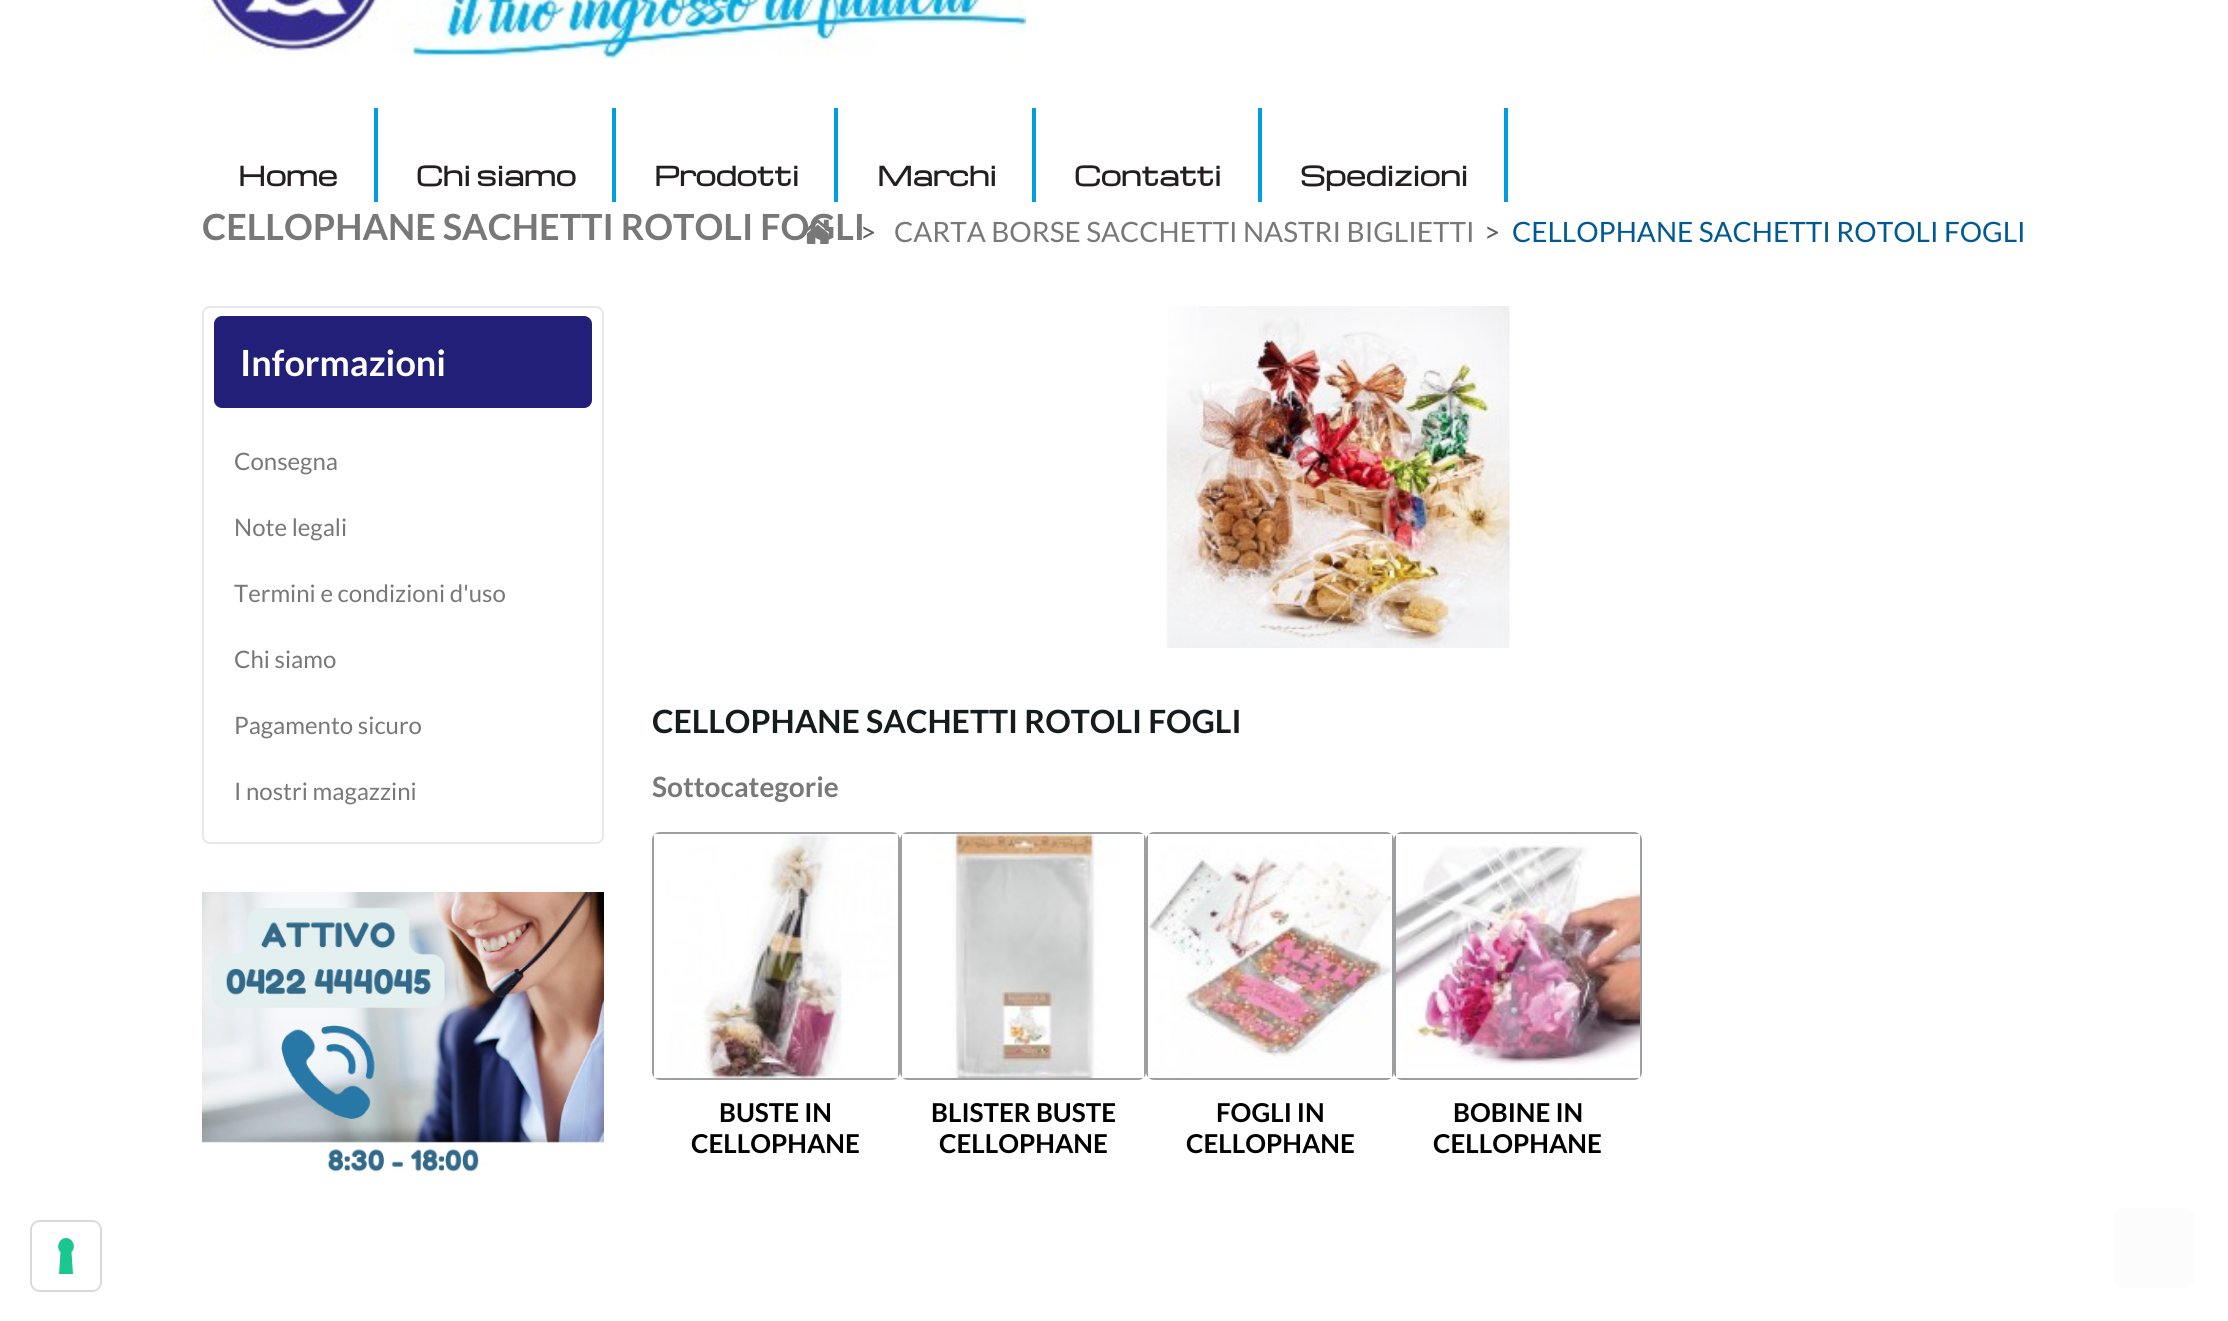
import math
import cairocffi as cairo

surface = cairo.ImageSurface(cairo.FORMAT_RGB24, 2228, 1321)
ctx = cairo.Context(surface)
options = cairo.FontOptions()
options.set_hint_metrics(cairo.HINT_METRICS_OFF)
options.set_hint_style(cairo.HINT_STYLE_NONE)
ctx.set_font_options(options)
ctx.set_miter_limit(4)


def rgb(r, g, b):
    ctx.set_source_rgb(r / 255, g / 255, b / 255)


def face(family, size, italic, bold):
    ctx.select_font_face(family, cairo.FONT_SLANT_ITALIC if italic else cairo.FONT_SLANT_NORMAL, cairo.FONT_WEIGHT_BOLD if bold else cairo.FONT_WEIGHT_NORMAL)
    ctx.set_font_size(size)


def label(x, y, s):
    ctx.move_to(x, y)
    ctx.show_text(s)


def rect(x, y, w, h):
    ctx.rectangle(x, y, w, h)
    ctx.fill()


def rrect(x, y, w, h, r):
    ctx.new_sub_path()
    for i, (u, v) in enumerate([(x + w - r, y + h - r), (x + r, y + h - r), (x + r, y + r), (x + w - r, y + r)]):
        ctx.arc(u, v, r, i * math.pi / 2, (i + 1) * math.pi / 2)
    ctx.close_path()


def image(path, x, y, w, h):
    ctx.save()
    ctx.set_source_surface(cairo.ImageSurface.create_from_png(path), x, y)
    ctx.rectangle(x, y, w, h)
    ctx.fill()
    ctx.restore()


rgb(255, 255, 255)
ctx.paint()
image('image0.png', 202, 0, 824, 58)
rgb(0, 158, 224)
rect(374, 108, 4, 94)
face('Michroma', 26, 0, 1)
rgb(35, 31, 32)
label(238, 186, 'Home')
rgb(0, 158, 224)
rect(612, 108, 4, 94)
rgb(35, 31, 32)
label(416, 186, 'Chi siamo')
rgb(0, 158, 224)
rect(834, 108, 4, 94)
rgb(35, 31, 32)
label(654, 186, 'Prodotti')
rgb(0, 158, 224)
rect(1032, 108, 4, 94)
rgb(35, 31, 32)
label(877, 186, 'Marchi')
rgb(0, 158, 224)
rect(1258, 108, 4, 94)
rgb(35, 31, 32)
label(1074, 186, 'Contatti')
rgb(0, 158, 224)
rect(1504, 108, 4, 94)
rgb(35, 31, 32)
label(1300, 186, 'Spedizioni')
face('Lato', 36, 0, 1)
rgb(120, 120, 120)
label(202, 240, 'CELLOPHANE SACHETTI ROTOLI FOGLI')
image('image1.png', 802, 219, 27, 25)
face('Lato', 28, 0, 0)
rgb(94, 94, 94)
label(860, 242, '>')
rgb(120, 120, 120)
label(894, 242, 'CARTA BORSE SACCHETTI NASTRI BIGLIETTI')
rgb(94, 94, 94)
label(1484, 242, '>')
rgb(0, 89, 149)
label(1512, 242, 'CELLOPHANE SACHETTI ROTOLI FOGLI')
rrect(203, 307, 400, 536, 7)
rgb(232, 232, 232)
ctx.stroke()
rgb(33, 31, 120)
rrect(214, 316, 378, 92, 8)
ctx.fill()
face('Lato', 36, 0, 1)
rgb(255, 255, 255)
label(240, 376, 'Informazioni')
face('Lato', 24, 0, 0)
rgb(120, 120, 120)
label(234, 470, 'Consegna')
label(234, 536, 'Note legali')
label(234, 602, 'Termini e condizioni d\'uso')
label(234, 668, 'Chi siamo')
label(234, 734, 'Pagamento sicuro')
label(234, 800, 'I nostri magazzini')
image('image2.png', 202, 892, 402, 281)
image('image3.png', 1166, 306, 346, 342)
face('Lato', 32, 0, 1)
rgb(22, 27, 30)
label(652, 733, 'CELLOPHANE SACHETTI ROTOLI FOGLI')
face('Lato', 28, 0, 1)
rgb(120, 120, 120)
label(652, 797, 'Sottocategorie')
rrect(653, 833, 246, 246, 7)
rgb(157, 158, 162)
ctx.stroke()
image('image4.png', 654, 834, 244, 244)
face('Lato', 26, 0, 1)
rgb(0, 0, 0)
label(719, 1122, 'BUSTE IN')
label(691, 1153, 'CELLOPHANE')
rrect(901, 833, 244, 246, 7)
rgb(157, 158, 162)
ctx.stroke()
image('image5.png', 902, 834, 242, 244)
rgb(0, 0, 0)
label(931, 1122, 'BLISTER BUSTE')
label(939, 1153, 'CELLOPHANE')
rrect(1147, 833, 246, 246, 7)
rgb(157, 158, 162)
ctx.stroke()
image('image6.png', 1148, 834, 244, 244)
rgb(0, 0, 0)
label(1216, 1122, 'FOGLI IN')
label(1186, 1153, 'CELLOPHANE')
rrect(1395, 833, 246, 246, 7)
rgb(157, 158, 162)
ctx.stroke()
image('image7.png', 1396, 834, 244, 244)
rgb(0, 0, 0)
label(1453, 1122, 'BOBINE IN')
label(1433, 1153, 'CELLOPHANE')
rrect(31, 1221, 70, 70, 9)
rgb(217, 217, 217)
ctx.stroke()
rgb(255, 255, 255)
rrect(32, 1222, 68, 68, 8)
ctx.fill()
rgb(28, 198, 145)
ctx.set_fill_rule(cairo.FILL_RULE_EVEN_ODD)
ctx.new_path()
ctx.move_to(66, 1238)
ctx.curve_to(73, 1238, 76.5, 1247.5, 71.5, 1252)
ctx.line_to(73, 1274)
ctx.line_to(59, 1274)
ctx.line_to(60.5, 1252)
ctx.curve_to(55.5, 1247.5, 59, 1238, 66, 1238)
ctx.close_path()
ctx.fill()
rgb(252, 252, 253)
rrect(2114, 1208, 80, 80, 8)
ctx.fill()
surface.write_to_png('render.png')
